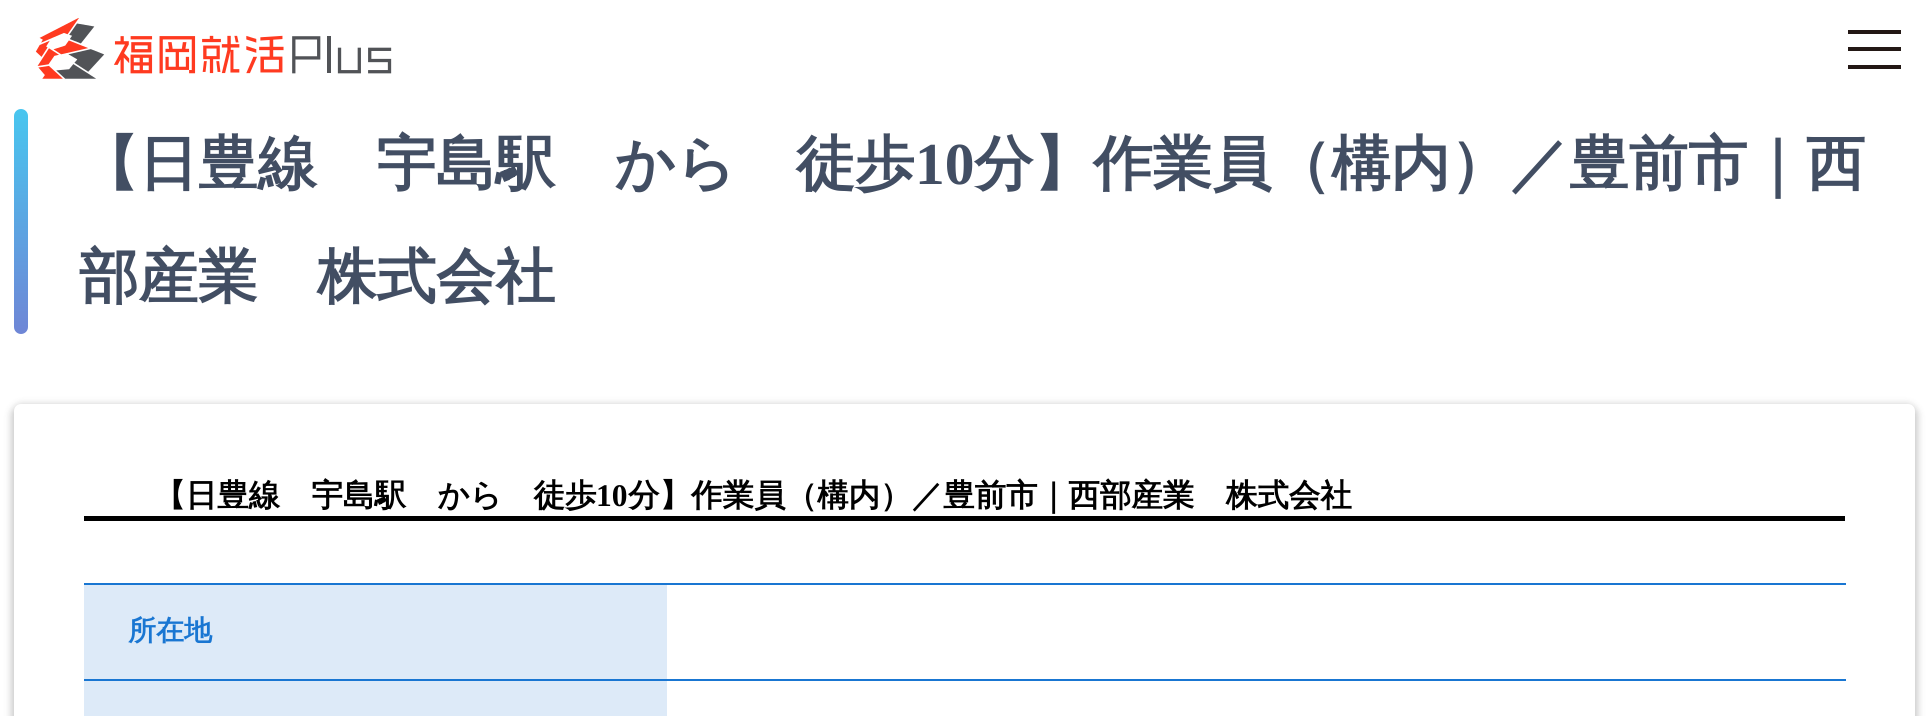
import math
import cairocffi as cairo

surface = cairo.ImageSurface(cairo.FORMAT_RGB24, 1927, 716)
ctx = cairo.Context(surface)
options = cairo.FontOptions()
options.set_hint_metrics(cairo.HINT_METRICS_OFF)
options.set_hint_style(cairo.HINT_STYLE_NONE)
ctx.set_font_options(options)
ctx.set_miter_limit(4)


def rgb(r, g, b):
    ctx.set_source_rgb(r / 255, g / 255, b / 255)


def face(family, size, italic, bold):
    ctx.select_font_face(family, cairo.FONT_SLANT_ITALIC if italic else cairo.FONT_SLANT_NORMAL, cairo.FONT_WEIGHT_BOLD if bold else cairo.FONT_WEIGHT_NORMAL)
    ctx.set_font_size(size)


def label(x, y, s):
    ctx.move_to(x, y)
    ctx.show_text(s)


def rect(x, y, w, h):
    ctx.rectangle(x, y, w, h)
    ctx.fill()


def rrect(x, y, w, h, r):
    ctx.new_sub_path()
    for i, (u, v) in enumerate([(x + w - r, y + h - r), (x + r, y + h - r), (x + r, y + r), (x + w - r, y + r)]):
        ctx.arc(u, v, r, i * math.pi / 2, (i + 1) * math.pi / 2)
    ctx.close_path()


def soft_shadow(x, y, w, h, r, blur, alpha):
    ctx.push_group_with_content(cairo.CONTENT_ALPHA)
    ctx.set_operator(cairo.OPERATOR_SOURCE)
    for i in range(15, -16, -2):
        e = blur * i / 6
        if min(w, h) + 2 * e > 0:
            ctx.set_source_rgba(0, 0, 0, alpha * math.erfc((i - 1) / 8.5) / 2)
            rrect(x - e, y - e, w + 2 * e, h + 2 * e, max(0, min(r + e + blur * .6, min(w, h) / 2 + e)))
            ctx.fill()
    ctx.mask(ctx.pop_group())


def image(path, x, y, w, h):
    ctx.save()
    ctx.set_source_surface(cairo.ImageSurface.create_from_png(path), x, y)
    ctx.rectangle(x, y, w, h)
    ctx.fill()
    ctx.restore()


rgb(255, 255, 255)
ctx.paint()
image('image0.png', 35, 18, 357, 61)
rgb(35, 24, 21)
rect(1848, 30, 53, 4)
rect(1848, 47, 53, 4)
rect(1848, 65, 53, 4)
gradient = cairo.LinearGradient(21, 109, 21, 334)
gradient.add_color_stop_rgba(0, 0.282, 0.776, 0.937, 1)
gradient.add_color_stop_rgba(1, 0.435, 0.525, 0.839, 1)
ctx.set_source(gradient)
rrect(14, 109, 14, 225, 7)
ctx.fill()
face('WenQuanYi Zen Hei', 59.5, 0, 1)
rgb(66, 78, 99)
label(79, 184, '【日豊線　宇島駅　から　徒歩')
face('Liberation Serif', 59.5, 0, 1)
label(915, 184, '10')
face('WenQuanYi Zen Hei', 59.5, 0, 1)
label(974, 184, '分】作業員（構内）／豊前市｜西')
label(79, 297, '部産業　株式会社')
rgb(0, 0, 0)
soft_shadow(11, 404, 1907, 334, 11, 3.5, 0.2)
rgb(255, 255, 255)
rrect(14, 404, 1901, 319, 7)
ctx.fill()
rgb(0, 0, 0)
rect(84, 516, 1761, 5)
face('WenQuanYi Zen Hei', 31.5, 0, 1)
label(154, 506, '【日豊線　宇島駅　から　徒歩')
face('Liberation Serif', 31.5, 0, 1)
label(596, 506, '10')
face('WenQuanYi Zen Hei', 31.5, 0, 1)
label(628, 506, '分】作業員（構内）／豊前市｜西部産業　株式会社')
rgb(25, 118, 210)
rect(84, 583, 1762, 2)
rgb(221, 234, 248)
rect(84, 585, 583, 94)
face('WenQuanYi Zen Hei', 28, 0, 1)
rgb(25, 118, 210)
label(128, 640, '所在地')
rect(84, 679, 1762, 2)
rgb(221, 234, 248)
rect(84, 681, 583, 35)
surface.write_to_png('render.png')
